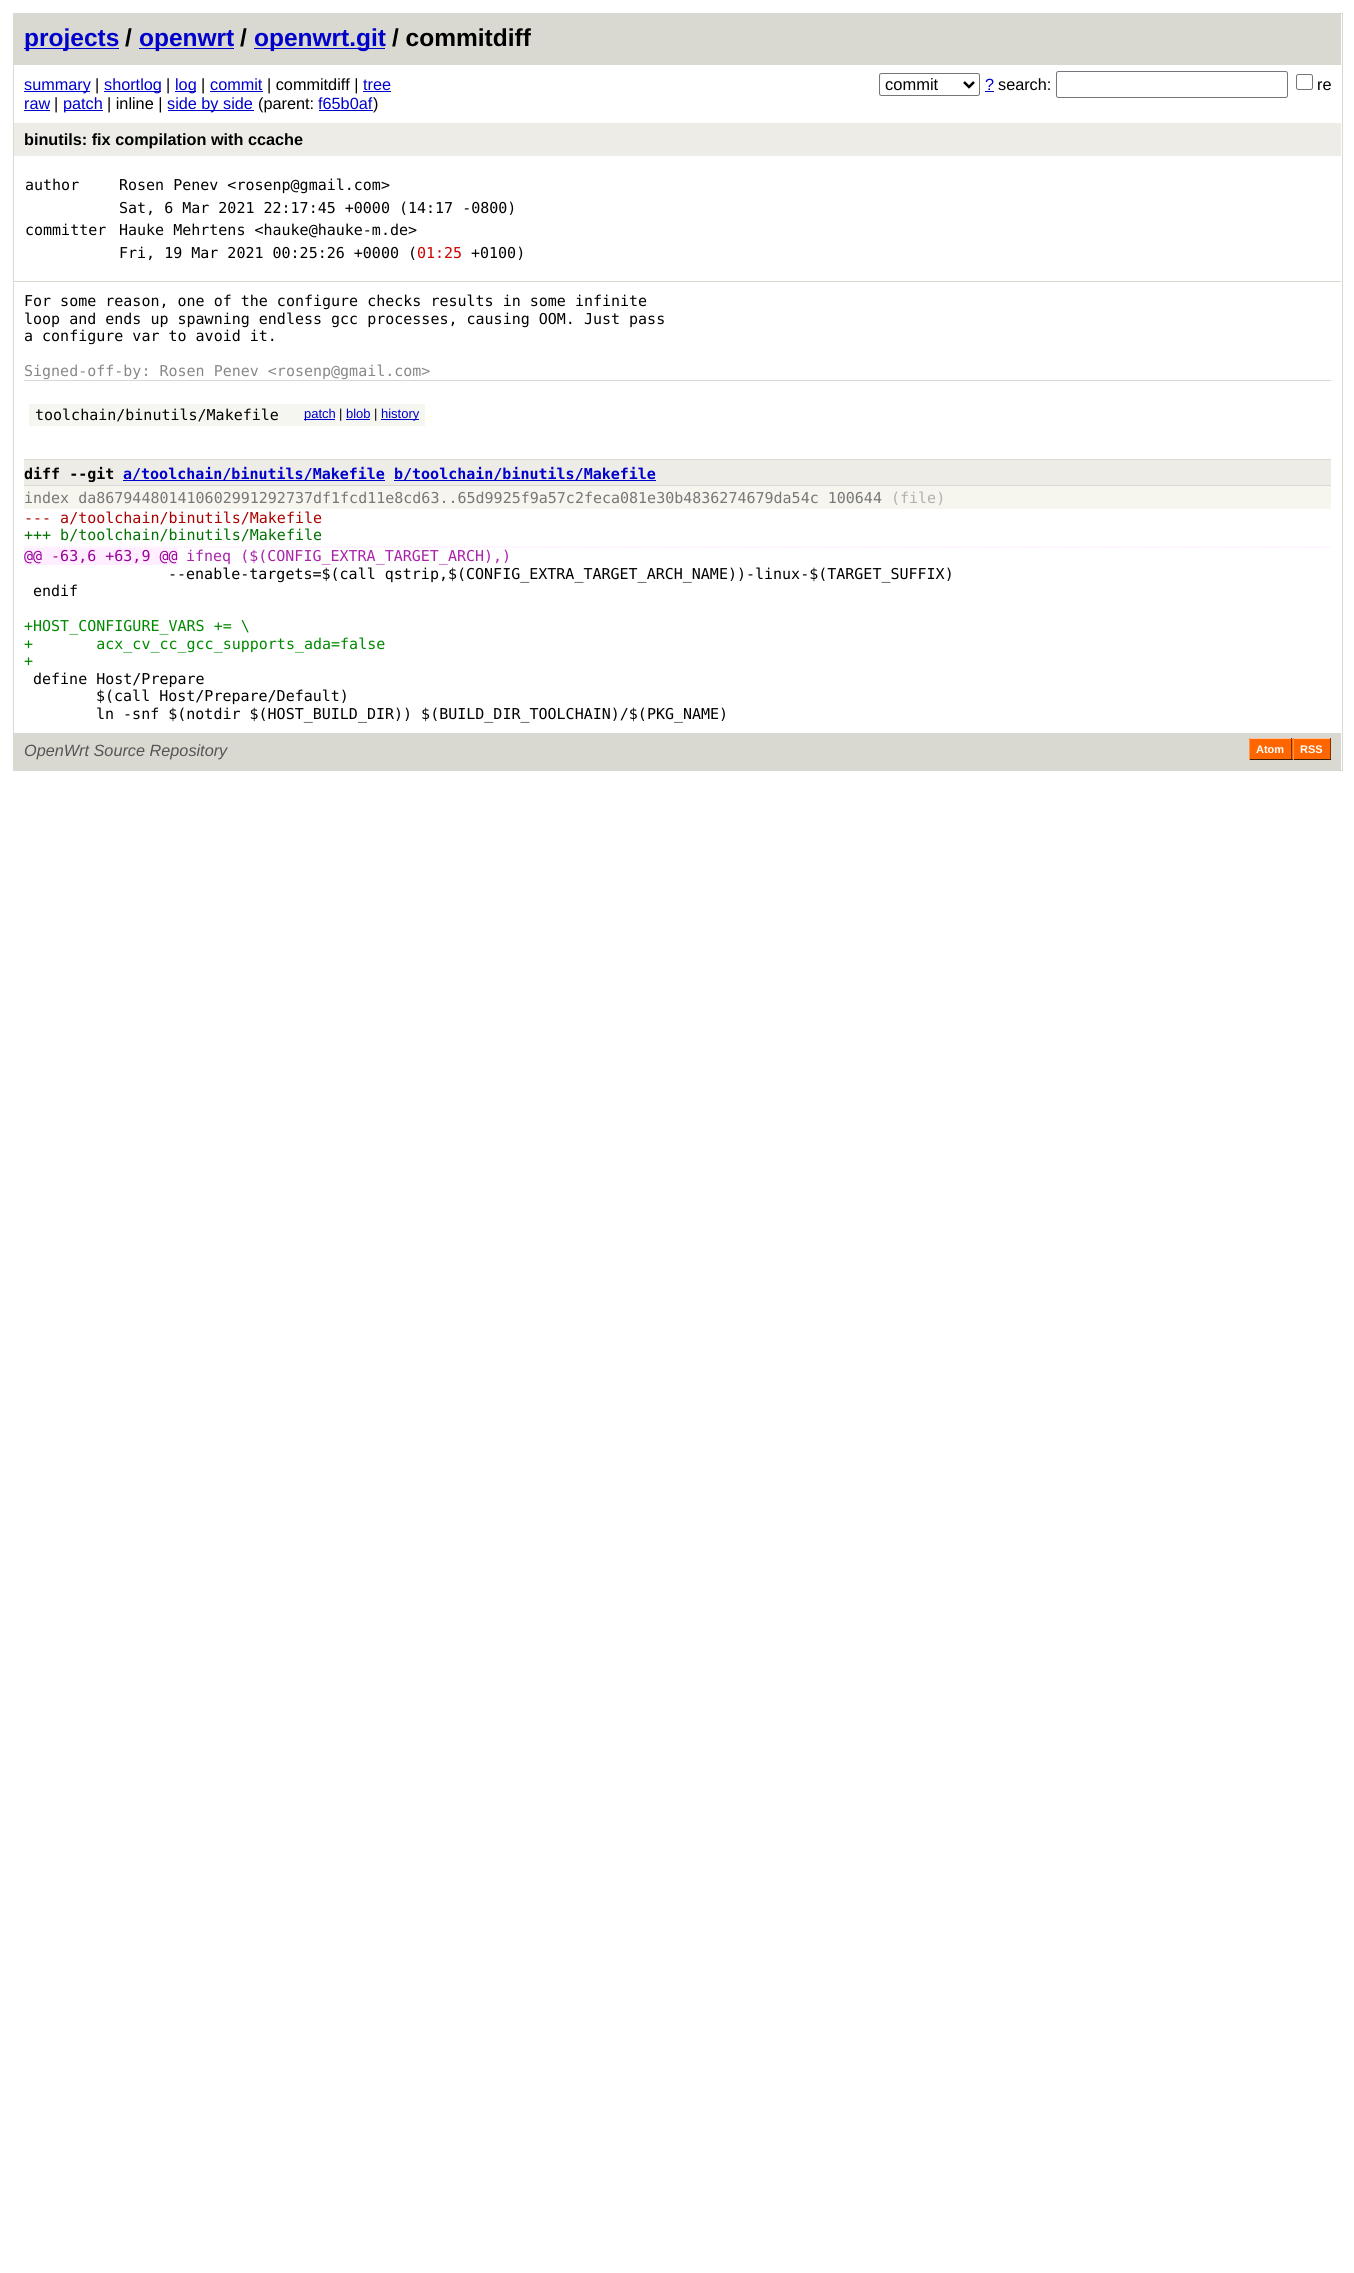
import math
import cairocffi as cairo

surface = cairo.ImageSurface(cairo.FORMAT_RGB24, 1354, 2273)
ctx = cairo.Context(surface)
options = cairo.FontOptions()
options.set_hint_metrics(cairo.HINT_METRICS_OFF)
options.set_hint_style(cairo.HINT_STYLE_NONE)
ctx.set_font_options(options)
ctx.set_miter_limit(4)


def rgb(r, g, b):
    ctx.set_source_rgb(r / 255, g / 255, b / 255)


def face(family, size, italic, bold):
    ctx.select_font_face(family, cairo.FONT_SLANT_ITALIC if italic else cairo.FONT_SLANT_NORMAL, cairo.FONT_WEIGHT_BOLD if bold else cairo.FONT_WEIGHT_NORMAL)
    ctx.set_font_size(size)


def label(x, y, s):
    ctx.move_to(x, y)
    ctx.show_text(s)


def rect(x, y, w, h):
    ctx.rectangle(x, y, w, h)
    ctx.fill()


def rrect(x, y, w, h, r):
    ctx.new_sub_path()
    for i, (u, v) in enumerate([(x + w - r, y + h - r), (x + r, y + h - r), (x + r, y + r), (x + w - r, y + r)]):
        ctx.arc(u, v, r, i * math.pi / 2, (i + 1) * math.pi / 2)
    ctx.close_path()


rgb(255, 255, 255)
ctx.paint()
ctx.rectangle(13.5, 13.5, 1329, 757)
rgb(217, 216, 209)
ctx.set_line_width(1)
ctx.stroke()
rect(14, 14, 1327, 51)
rgb(0, 0, 204)
rect(24, 48, 95, 1)
face('Liberation Sans', 24.5, 0, 1)
label(24, 46, 'projects')
rgb(0, 0, 0)
label(125, 46, '/')
rgb(0, 0, 204)
rect(139, 48, 95, 1)
label(139, 46, 'openwrt')
rgb(0, 0, 0)
label(240, 46, '/')
rgb(0, 0, 204)
rect(254, 48, 131, 1)
label(254, 46, 'openwrt.git')
rgb(0, 0, 0)
label(392, 46, '/ commitdiff')
rgb(0, 0, 204)
rect(24, 91, 66, 1)
face('Liberation Sans', 16.25, 0, 0)
label(24, 90, 'summary')
rgb(0, 0, 0)
label(95, 90, '|')
rgb(0, 0, 204)
rect(104, 91, 57, 1)
label(104, 90, 'shortlog')
rgb(0, 0, 0)
label(166, 90, '|')
rgb(0, 0, 204)
rect(175, 91, 21, 1)
label(175, 90, 'log')
rgb(0, 0, 0)
label(201, 90, '|')
rgb(0, 0, 204)
label(210, 90, 'commit')
rect(210, 91, 53, 1)
rgb(0, 0, 0)
label(267, 90, '| commitdiff |')
rgb(0, 0, 204)
label(363, 90, 'tree')
rect(363, 91, 28, 1)
label(24, 109, 'raw')
rect(24, 110, 26, 1)
rgb(0, 0, 0)
label(54, 109, '|')
rgb(0, 0, 204)
rect(64, 110, 39, 1)
label(63, 109, 'patch')
rgb(0, 0, 0)
label(107, 109, '| inline |')
rgb(0, 0, 204)
rect(168, 110, 86, 1)
label(167, 109, 'side by side')
rgb(0, 0, 0)
label(258, 109, '(parent:')
rgb(0, 0, 204)
label(318, 109, 'f65b0af')
rect(319, 110, 54, 1)
rgb(0, 0, 0)
label(373, 109, ')')
rrect(879.5, 73.5, 100, 22, 2)
rgb(118, 118, 118)
ctx.stroke()
ctx.new_path()
ctx.move_to(964, 82)
ctx.line_to(969, 87)
ctx.line_to(974, 82)
rgb(0, 0, 0)
ctx.set_line_width(2.5)
ctx.stroke()
face('Liberation Sans', 16.5, 0, 0)
label(885, 90, 'commit')
face('Liberation Sans', 16.25, 0, 0)
rgb(0, 0, 204)
label(985, 90, '?')
rect(985, 91, 9, 1)
rgb(0, 0, 0)
label(998, 90, 'search:')
rrect(1056.5, 71.5, 231, 26, 2)
rgb(118, 118, 118)
ctx.set_line_width(1)
ctx.stroke()
rrect(1296.5, 74.5, 16, 15, 2)
ctx.stroke()
rgb(0, 0, 0)
label(1317, 90, 're')
rgb(237, 236, 230)
rect(14, 123, 1327, 33)
face('Liberation Sans', 16.25, 0, 1)
rgb(0, 0, 0)
label(24, 145, 'binutils: fix compilation with ccache')
rgb(217, 216, 209)
rect(14, 281, 1327, 1)
face('DejaVu Sans Mono', 15, 0, 0)
rgb(0, 0, 0)
label(25, 190, 'author')
label(119, 190, 'Rosen Penev <rosenp@gmail.com>')
label(119, 213, 'Sat, 6 Mar 2021 22:17:45 +0000 (14:17 -0800)')
label(25, 235, 'committer')
label(119, 235, 'Hauke Mehrtens <hauke@hauke-m.de>')
label(119, 258, 'Fri, 19 Mar 2021 00:25:26 +0000 (')
rgb(204, 0, 0)
label(417, 258, '01:25')
rgb(0, 0, 0)
label(471, 258, '+0100)')
label(24, 306, 'For some reason, one of the configure checks results in some infinite')
label(24, 324, 'loop and ends up spawning endless gcc processes, causing OOM. Just pass')
label(24, 341, 'a configure var to avoid it.')
rgb(136, 136, 136)
label(24, 376, 'Signed-off-by: Rosen Penev <rosenp@gmail.com>')
rgb(217, 216, 209)
rect(24, 380, 1307, 1)
rgb(246, 246, 240)
rect(29, 404, 396, 22)
rgb(0, 0, 0)
label(35, 420, 'toolchain/binutils/Makefile')
rgb(0, 0, 204)
rect(304, 419, 31, 1)
face('Liberation Sans', 13, 0, 0)
label(304, 418, 'patch')
rgb(0, 0, 0)
label(339, 418, '|')
rgb(0, 0, 204)
label(346, 418, 'blob')
rect(346, 419, 24, 1)
rgb(0, 0, 0)
label(374, 418, '|')
rgb(0, 0, 204)
rect(381, 419, 38, 1)
label(381, 418, 'history')
rgb(237, 236, 230)
rect(24, 460, 1307, 25)
rgb(217, 216, 209)
rect(24, 459, 1307, 1)
rect(24, 485, 1307, 1)
face('DejaVu Sans Mono', 15, 0, 1)
rgb(0, 0, 0)
label(24, 479, 'diff --git')
rgb(0, 0, 204)
rect(123, 480, 262, 1)
label(123, 479, 'a/toolchain/binutils/Makefile')
rect(394, 480, 262, 1)
label(394, 479, 'b/toolchain/binutils/Makefile')
rgb(246, 245, 238)
rect(24, 486, 1307, 23)
face('DejaVu Sans Mono', 15, 0, 0)
rgb(119, 119, 119)
label(24, 503, 'index da867944801410602991292737df1fcd11e8cd63..65d9925f9a57c2feca081e30b4836274679da54c 100644')
rgb(176, 176, 176)
label(891, 503, '(file)')
rgb(170, 0, 0)
label(24, 523, '--- a/toolchain/binutils/Makefile')
rgb(0, 112, 0)
label(24, 540, '+++ b/toolchain/binutils/Makefile')
ctx.new_path()
ctx.move_to(24, 547)
ctx.line_to(1331, 547)
rgb(255, 224, 255)
ctx.set_line_width(1.2)
ctx.set_dash([1.25, 1.25])
ctx.stroke()
rgb(255, 238, 255)
rect(24, 548, 154, 17)
rgb(153, 0, 153)
label(24, 561, '@@ -63,6 +63,9 @@')
rgb(170, 34, 170)
label(186, 561, 'ifneq ($(CONFIG_EXTRA_TARGET_ARCH),)')
rgb(0, 0, 0)
label(168, 579, '--enable-targets=$(call qstrip,$(CONFIG_EXTRA_TARGET_ARCH_NAME))-linux-$(TARGET_SUFFIX)')
label(33, 596, 'endif')
rgb(0, 136, 0)
label(24, 631, '+HOST_CONFIGURE_VARS += \\')
label(24, 649, '+       acx_cv_cc_gcc_supports_ada=false')
label(24, 666, '+')
rgb(0, 0, 0)
label(33, 684, 'define Host/Prepare')
label(96, 701, '$(call Host/Prepare/Default)')
label(96, 719, 'ln -snf $(notdir $(HOST_BUILD_DIR)) $(BUILD_DIR_TOOLCHAIN)/$(PKG_NAME)')
rgb(217, 216, 209)
rect(14, 733, 1327, 37)
face('Liberation Sans', 16.25, 1, 0)
rgb(85, 85, 85)
label(24, 756, 'OpenWrt Source Repository')
rgb(255, 102, 0)
rect(1250, 739, 43, 20)
rgb(252, 199, 165)
rect(1249, 738, 82, 1)
rgb(125, 51, 2)
rect(1291, 738, 1, 22)
rgb(62, 26, 1)
rect(1249, 759, 44, 1)
rgb(255, 149, 78)
rect(1249, 738, 1, 22)
face('Liberation Sans', 11, 0, 1)
rgb(255, 255, 255)
label(1256, 753, 'Atom')
rgb(255, 102, 0)
rect(1294, 739, 36, 20)
rgb(125, 51, 2)
rect(1330, 738, 1, 22)
rgb(62, 26, 1)
rect(1293, 759, 38, 1)
rgb(255, 149, 78)
rect(1293, 738, 1, 22)
rgb(255, 255, 255)
label(1300, 753, 'RSS')
surface.write_to_png('render.png')
